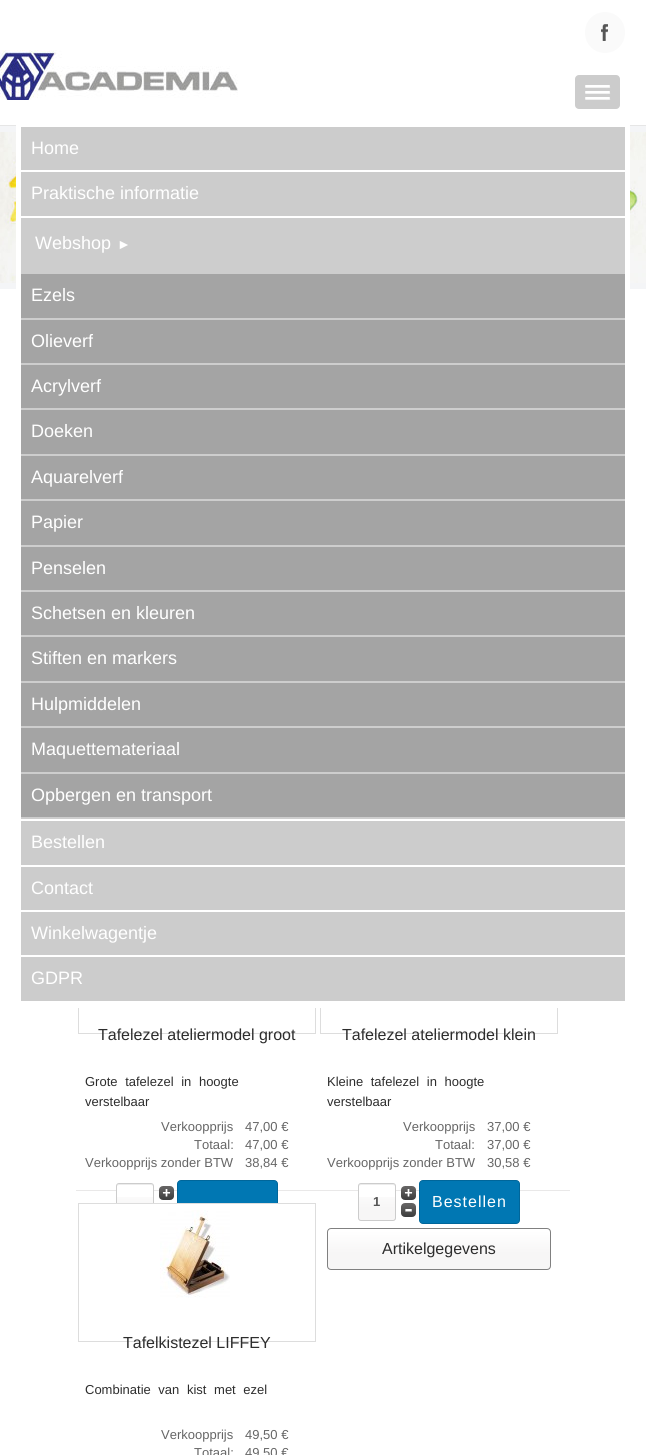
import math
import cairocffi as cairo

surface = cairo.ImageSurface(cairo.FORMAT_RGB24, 646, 1455)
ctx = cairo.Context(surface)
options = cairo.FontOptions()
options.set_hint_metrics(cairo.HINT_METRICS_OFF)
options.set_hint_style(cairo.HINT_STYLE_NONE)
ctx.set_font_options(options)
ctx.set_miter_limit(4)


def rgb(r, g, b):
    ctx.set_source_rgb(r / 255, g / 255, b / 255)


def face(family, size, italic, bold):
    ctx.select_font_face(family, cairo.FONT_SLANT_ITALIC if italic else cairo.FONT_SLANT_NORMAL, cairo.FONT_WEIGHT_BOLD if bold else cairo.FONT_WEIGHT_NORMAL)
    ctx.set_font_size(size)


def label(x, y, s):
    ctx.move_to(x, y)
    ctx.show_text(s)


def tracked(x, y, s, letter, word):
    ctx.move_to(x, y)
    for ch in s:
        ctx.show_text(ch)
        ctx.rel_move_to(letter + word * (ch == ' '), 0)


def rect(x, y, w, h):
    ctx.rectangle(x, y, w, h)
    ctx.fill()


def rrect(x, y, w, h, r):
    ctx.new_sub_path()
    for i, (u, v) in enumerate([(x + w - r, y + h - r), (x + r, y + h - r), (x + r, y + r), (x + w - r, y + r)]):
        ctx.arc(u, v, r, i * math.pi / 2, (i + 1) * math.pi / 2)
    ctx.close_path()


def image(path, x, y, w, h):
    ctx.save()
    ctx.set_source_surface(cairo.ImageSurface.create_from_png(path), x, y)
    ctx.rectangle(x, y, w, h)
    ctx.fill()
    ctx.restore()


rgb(244, 245, 247)
ctx.paint()
image('image0.png', 0, 132, 646, 151)
rgb(255, 255, 255)
rect(0, 0, 646, 125)
rgb(230, 230, 230)
rect(0, 125, 646, 1)
rgb(250, 250, 250)
rrect(585, 12, 40, 41, 20)
ctx.fill()
image('image1.png', 601, 24, 7, 17)
image('image2.png', 0, 50, 238, 50)
rgb(255, 255, 255)
rect(0, 289, 646, 1166)
ctx.rectangle(78.5, 895.5, 237, 138)
rgb(221, 221, 221)
ctx.set_line_width(1)
ctx.stroke()
ctx.rectangle(320.5, 895.5, 237, 138)
ctx.stroke()
rgb(255, 255, 255)
rect(16, 125, 614, 883)
rgb(204, 204, 204)
rrect(575, 75, 45, 34, 4)
ctx.fill()
rgb(240, 240, 240)
ctx.new_path()
ctx.move_to(585, 86.5)
ctx.curve_to(585, 87, 585, 88, 586, 88)
ctx.line_to(605, 88)
ctx.curve_to(608, 88, 611, 88.5, 610, 86.5)
ctx.line_to(609, 87)
ctx.line_to(586, 87)
ctx.close_path()
ctx.fill()
rgb(255, 255, 255)
rrect(585, 85, 25, 2, 1)
ctx.fill()
rgb(240, 240, 240)
ctx.new_path()
ctx.move_to(585, 92.5)
ctx.curve_to(585, 93, 585, 94, 586, 94)
ctx.line_to(605, 94)
ctx.curve_to(608, 94, 611, 94.5, 610, 92.5)
ctx.line_to(609, 93)
ctx.line_to(586, 93)
ctx.close_path()
ctx.fill()
rgb(255, 255, 255)
rrect(585, 91, 25, 2, 1)
ctx.fill()
rgb(240, 240, 240)
ctx.new_path()
ctx.move_to(585, 98.5)
ctx.curve_to(585, 99, 585, 100, 586, 100)
ctx.line_to(605, 100)
ctx.curve_to(608, 100, 611, 100.5, 610, 98.5)
ctx.line_to(609, 99)
ctx.line_to(586, 99)
ctx.close_path()
ctx.fill()
rgb(255, 255, 255)
rrect(585, 97, 25, 2, 1)
ctx.fill()
rgb(204, 204, 204)
rect(21, 127, 604, 43)
face('Liberation Sans', 18, 0, 0)
rgb(255, 255, 255)
label(31, 154, 'Home')
rgb(204, 204, 204)
rect(21, 172, 604, 44)
rgb(255, 255, 255)
label(31, 199, 'Praktische informatie')
rgb(205, 205, 205)
rect(21, 218, 604, 601)
rgb(255, 255, 255)
label(35, 249, 'Webshop')
face('Liberation Sans', 14, 0, 0)
label(117, 249, '►')
rgb(164, 164, 164)
rect(21, 274, 604, 44)
face('Liberation Sans', 18, 0, 0)
rgb(255, 255, 255)
label(31, 301, 'Ezels')
rgb(164, 164, 164)
rect(21, 320, 604, 43)
rgb(255, 255, 255)
label(31, 347, 'Olieverf')
rgb(164, 164, 164)
rect(21, 365, 604, 43)
rgb(255, 255, 255)
label(31, 392, 'Acrylverf')
rgb(164, 164, 164)
rect(21, 410, 604, 44)
rgb(255, 255, 255)
label(31, 437, 'Doeken')
rgb(164, 164, 164)
rect(21, 456, 604, 43)
rgb(255, 255, 255)
label(31, 483, 'Aquarelverf')
rgb(164, 164, 164)
rect(21, 501, 604, 44)
rgb(255, 255, 255)
label(31, 528, 'Papier')
rgb(164, 164, 164)
rect(21, 547, 604, 43)
rgb(255, 255, 255)
label(31, 574, 'Penselen')
rgb(164, 164, 164)
rect(21, 592, 604, 43)
rgb(255, 255, 255)
label(31, 619, 'Schetsen en kleuren')
rgb(164, 164, 164)
rect(21, 637, 604, 44)
rgb(255, 255, 255)
label(31, 664, 'Stiften en markers')
rgb(164, 164, 164)
rect(21, 683, 604, 43)
rgb(255, 255, 255)
label(31, 710, 'Hulpmiddelen')
rgb(164, 164, 164)
rect(21, 728, 604, 44)
rgb(255, 255, 255)
label(31, 755, 'Maquettemateriaal')
rgb(164, 164, 164)
rect(21, 774, 604, 43)
rgb(255, 255, 255)
label(31, 801, 'Opbergen en transport')
rgb(204, 204, 204)
rect(21, 821, 604, 44)
rgb(255, 255, 255)
label(31, 848, 'Bestellen')
rgb(204, 204, 204)
rect(21, 867, 604, 43)
rgb(255, 255, 255)
label(31, 894, 'Contact')
rgb(204, 204, 204)
rect(21, 912, 604, 43)
rgb(255, 255, 255)
label(31, 939, 'Winkelwagentje')
rgb(204, 204, 204)
rect(21, 957, 604, 44)
rgb(255, 255, 255)
label(31, 984, 'GDPR')
face('Liberation Sans', 16, 0, 0)
rgb(45, 45, 45)
label(98, 1040, 'Tafelezel ateliermodel groot')
face('Liberation Sans', 13, 0, 0)
tracked(85, 1086, 'Grote tafelezel in hoogte', 0, 4)
label(85, 1106, 'verstelbaar')
rgb(102, 102, 102)
label(161, 1131, 'Verkoopprijs')
label(245, 1131, '47,00 €')
label(194, 1149, 'Totaal:')
label(245, 1149, '47,00 €')
label(85, 1167, 'Verkoopprijs zonder BTW')
label(245, 1167, '38,84 €')
rgb(233, 232, 232)
rect(76, 1190, 494, 1)
rgb(255, 255, 255)
rrect(116, 1183, 38, 38, 3)
ctx.fill()
image('image3.png', 117, 1197, 36, 6)
rgb(236, 236, 236)
ctx.new_path()
ctx.move_to(119, 1185)
ctx.line_to(151, 1185)
ctx.curve_to(152, 1185, 153, 1186, 153, 1187)
ctx.curve_to(153, 1182.5, 149.5, 1184, 145.5, 1184)
ctx.line_to(124.5, 1184)
ctx.curve_to(120.5, 1184, 117, 1182.5, 117, 1187)
ctx.curve_to(117, 1186, 118, 1185, 119, 1185)
ctx.close_path()
ctx.fill()
rrect(116.5, 1183.5, 37, 37, 2.5)
rgb(204, 204, 204)
ctx.stroke()
image('image4.png', 159, 1186, 15, 14)
rgb(0, 119, 179)
rrect(177.5, 1180.5, 100, 43, 3.5)
ctx.fill_preserve()
rgb(0, 102, 154)
ctx.stroke()
face('Liberation Sans', 16, 0, 0)
rgb(45, 45, 45)
label(342, 1040, 'Tafelezel ateliermodel klein')
face('Liberation Sans', 13, 0, 0)
tracked(327, 1086, 'Kleine tafelezel in hoogte', 0, 4)
label(327, 1106, 'verstelbaar')
rgb(102, 102, 102)
label(403, 1131, 'Verkoopprijs')
label(487, 1131, '37,00 €')
label(435, 1149, 'Totaal:')
label(487, 1149, '37,00 €')
label(327, 1167, 'Verkoopprijs zonder BTW')
label(487, 1167, '30,58 €')
rgb(255, 255, 255)
rrect(358, 1183, 38, 38, 3)
ctx.fill()
image('image5.png', 358, 1197, 38, 24)
rgb(236, 236, 236)
ctx.new_path()
ctx.move_to(361, 1185)
ctx.line_to(393, 1185)
ctx.curve_to(394, 1185, 395, 1186, 395, 1187)
ctx.curve_to(395, 1182.5, 391.5, 1184, 387.5, 1184)
ctx.line_to(366.5, 1184)
ctx.curve_to(362.5, 1184, 359, 1182.5, 359, 1187)
ctx.curve_to(359, 1186, 360, 1185, 361, 1185)
ctx.close_path()
ctx.fill()
rrect(358.5, 1183.5, 37, 37, 2.5)
rgb(204, 204, 204)
ctx.stroke()
face('Liberation Sans', 13, 0, 1)
rgb(85, 85, 85)
label(373, 1206, '1')
image('image4.png', 401, 1186, 15, 14)
image('image6.png', 401, 1203, 15, 14)
rgb(0, 119, 179)
rrect(419.5, 1180.5, 100, 43, 3.5)
ctx.fill_preserve()
rgb(0, 102, 154)
ctx.stroke()
face('Liberation Sans', 16, 0, 0)
rgb(255, 255, 255)
tracked(432, 1207, 'Bestellen', 1, 0)
image('image7.png', 327, 1229, 224, 41)
rrect(327.5, 1228.5, 223, 41, 3.5)
rgb(128, 128, 128)
ctx.stroke()
rgb(45, 45, 45)
label(382, 1254, 'Artikelgegevens')
rgb(255, 255, 255)
rect(116, 1204, 162, 20)
ctx.rectangle(78.5, 1203.5, 237, 138)
rgb(221, 221, 221)
ctx.stroke()
image('image8.png', 160, 1210, 70, 88)
rgb(45, 45, 45)
label(123, 1348, 'Tafelkistezel LIFFEY')
face('Liberation Sans', 13, 0, 0)
tracked(85, 1394, 'Combinatie van kist met ezel', 0, 4)
rgb(102, 102, 102)
label(161, 1439, 'Verkoopprijs')
label(245, 1439, '49,50 €')
label(194, 1457, 'Totaal:')
label(245, 1457, '49,50 €')
surface.write_to_png('render.png')
